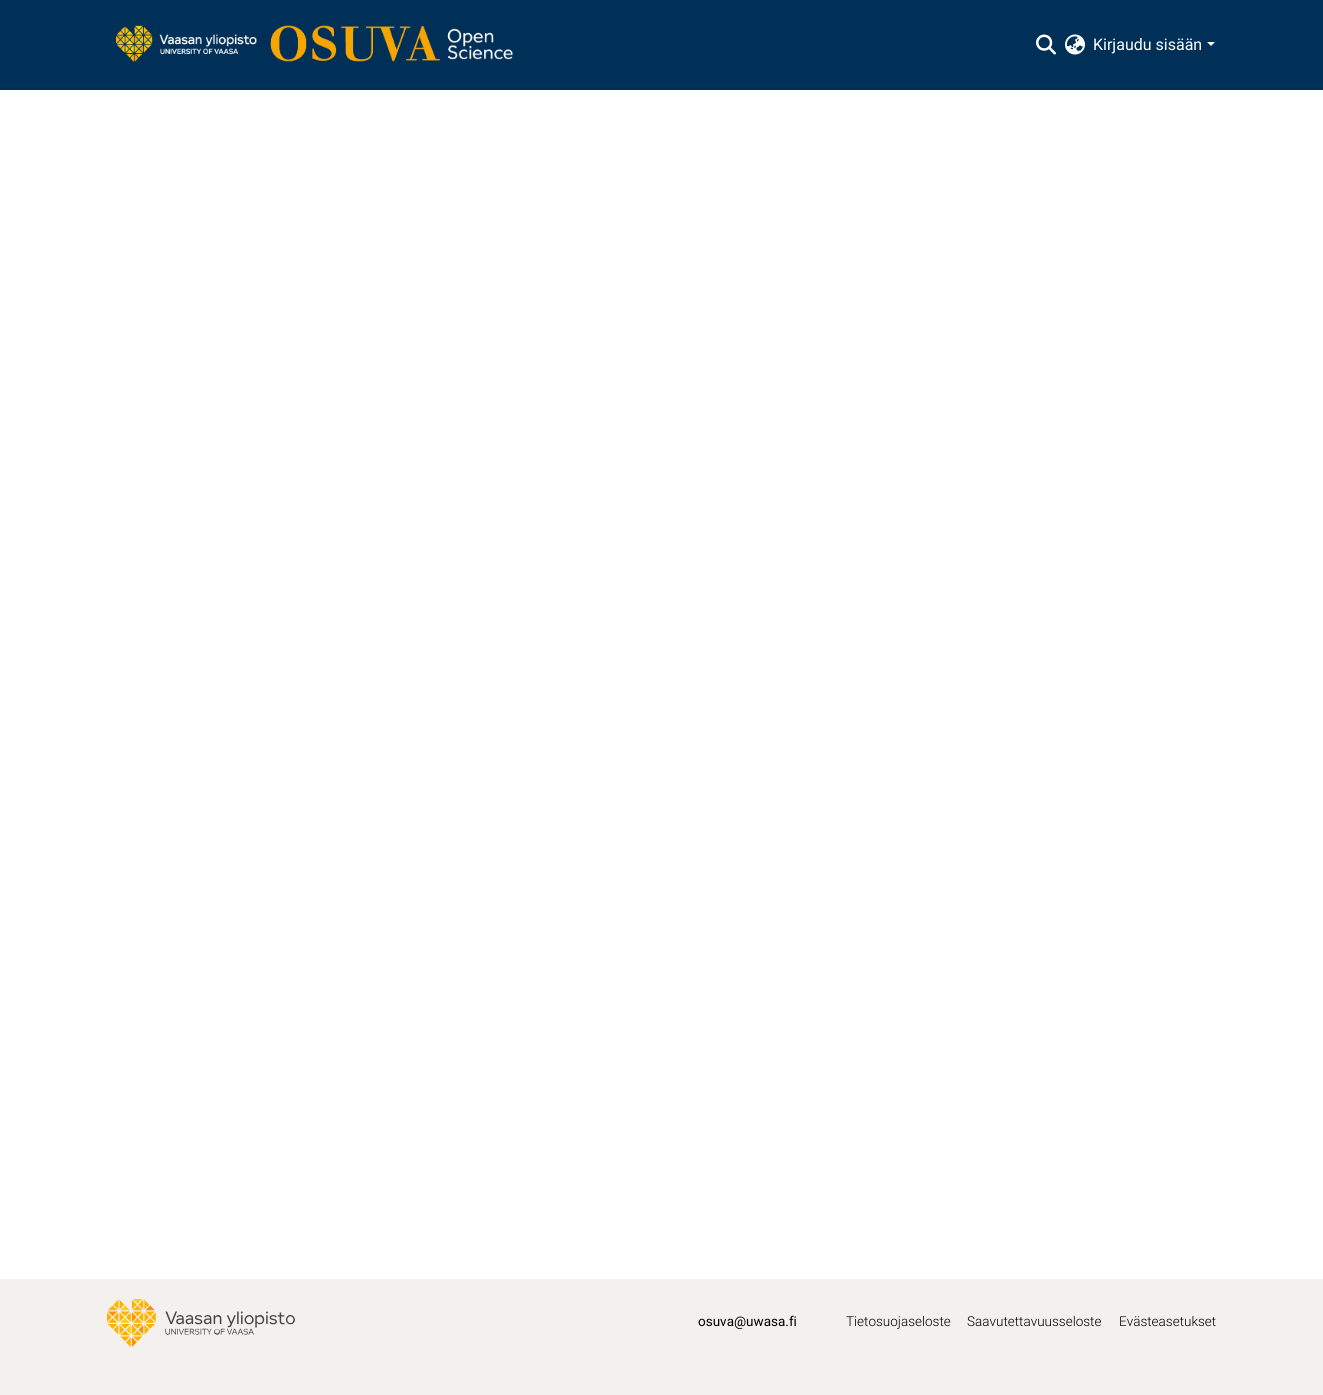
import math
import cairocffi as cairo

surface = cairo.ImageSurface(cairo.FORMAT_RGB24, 1323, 1395)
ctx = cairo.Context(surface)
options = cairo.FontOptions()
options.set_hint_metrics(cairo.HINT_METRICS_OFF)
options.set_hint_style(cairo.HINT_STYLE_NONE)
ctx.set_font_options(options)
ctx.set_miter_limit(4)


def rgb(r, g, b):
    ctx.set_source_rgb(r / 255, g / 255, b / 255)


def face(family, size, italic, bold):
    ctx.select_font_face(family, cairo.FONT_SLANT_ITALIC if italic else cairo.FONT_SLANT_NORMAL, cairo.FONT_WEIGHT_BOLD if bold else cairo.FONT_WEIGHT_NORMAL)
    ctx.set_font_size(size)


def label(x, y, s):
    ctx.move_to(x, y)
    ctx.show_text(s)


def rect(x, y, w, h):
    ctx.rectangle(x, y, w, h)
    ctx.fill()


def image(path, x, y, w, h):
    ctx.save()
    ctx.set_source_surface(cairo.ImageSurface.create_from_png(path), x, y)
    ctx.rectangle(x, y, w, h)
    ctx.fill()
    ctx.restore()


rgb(255, 255, 255)
ctx.paint()
rgb(0, 48, 87)
rect(0, 0, 1323, 90)
image('image0.png', 115, 25, 398, 37)
image('image1.png', 1036, 34, 20, 21)
image('image2.png', 1065, 34, 20, 21)
face('Roboto', 16, 0, 0)
rgb(255, 255, 255)
label(1093, 50, 'Kirjaudu sisään')
ctx.new_path()
ctx.move_to(1207, 42)
ctx.line_to(1215, 42)
ctx.line_to(1211, 46)
ctx.close_path()
ctx.fill()
rgb(243, 240, 237)
rect(0, 1279, 1323, 116)
image('image3.png', 107, 1299, 188, 48)
face('Roboto', 13.5, 0, 0)
rgb(0, 0, 0)
label(698, 1326, 'osuva@uwasa.fi')
face('Roboto Light', 13.5, 0, 0)
label(846, 1326, 'Tietosuojaseloste')
label(967, 1326, 'Saavutettavuusseloste')
label(1119, 1326, 'Evästeasetukset')
surface.write_to_png('render.png')
